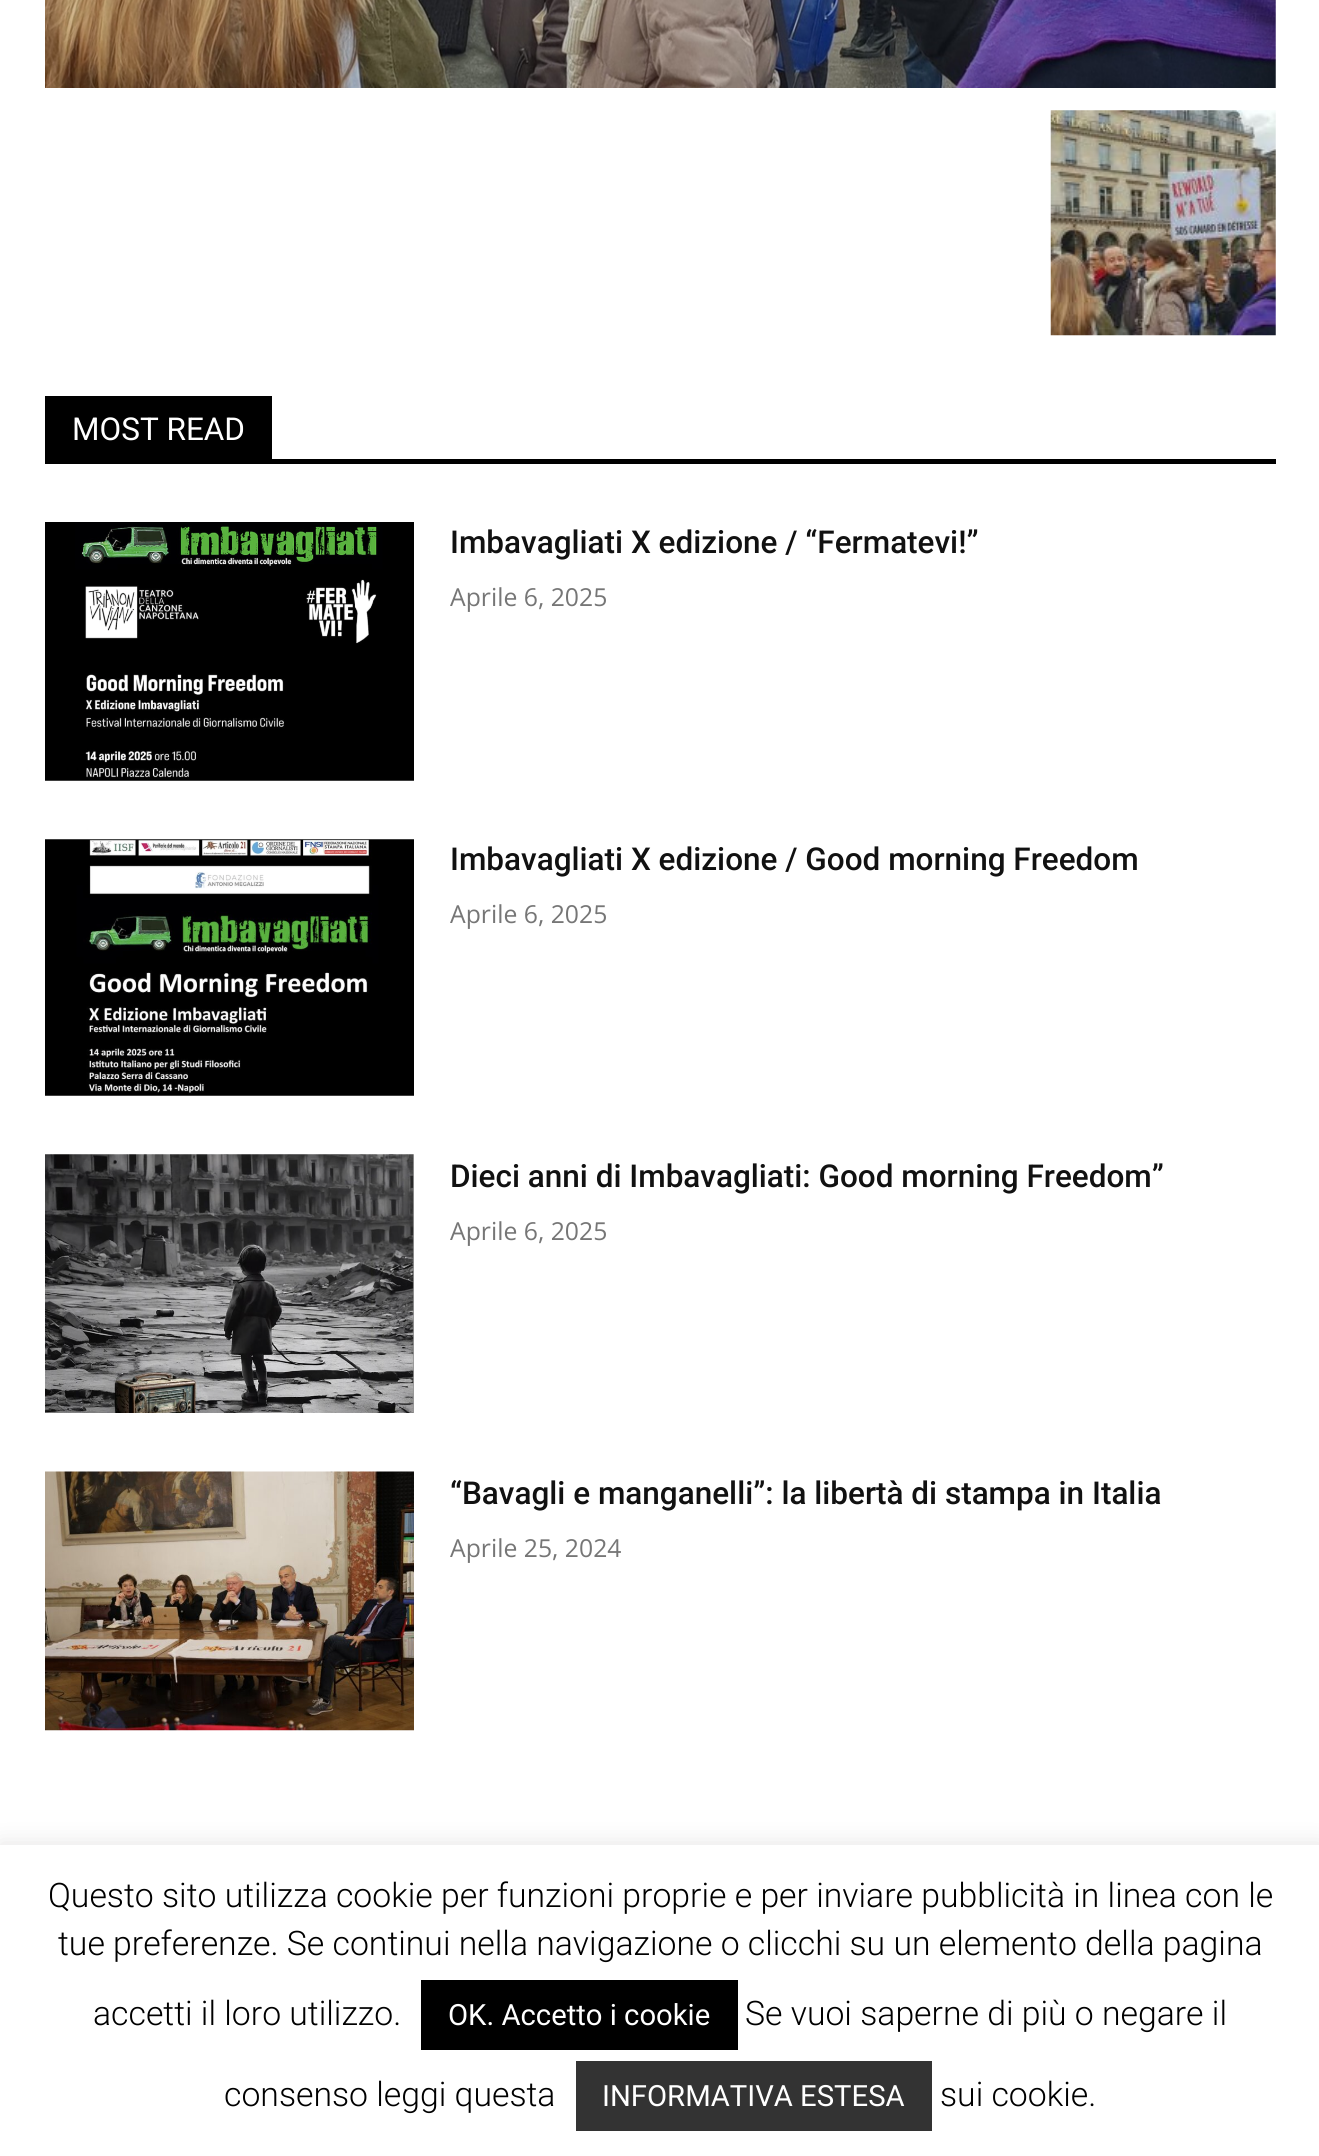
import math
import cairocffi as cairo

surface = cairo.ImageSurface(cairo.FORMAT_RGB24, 1319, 2156)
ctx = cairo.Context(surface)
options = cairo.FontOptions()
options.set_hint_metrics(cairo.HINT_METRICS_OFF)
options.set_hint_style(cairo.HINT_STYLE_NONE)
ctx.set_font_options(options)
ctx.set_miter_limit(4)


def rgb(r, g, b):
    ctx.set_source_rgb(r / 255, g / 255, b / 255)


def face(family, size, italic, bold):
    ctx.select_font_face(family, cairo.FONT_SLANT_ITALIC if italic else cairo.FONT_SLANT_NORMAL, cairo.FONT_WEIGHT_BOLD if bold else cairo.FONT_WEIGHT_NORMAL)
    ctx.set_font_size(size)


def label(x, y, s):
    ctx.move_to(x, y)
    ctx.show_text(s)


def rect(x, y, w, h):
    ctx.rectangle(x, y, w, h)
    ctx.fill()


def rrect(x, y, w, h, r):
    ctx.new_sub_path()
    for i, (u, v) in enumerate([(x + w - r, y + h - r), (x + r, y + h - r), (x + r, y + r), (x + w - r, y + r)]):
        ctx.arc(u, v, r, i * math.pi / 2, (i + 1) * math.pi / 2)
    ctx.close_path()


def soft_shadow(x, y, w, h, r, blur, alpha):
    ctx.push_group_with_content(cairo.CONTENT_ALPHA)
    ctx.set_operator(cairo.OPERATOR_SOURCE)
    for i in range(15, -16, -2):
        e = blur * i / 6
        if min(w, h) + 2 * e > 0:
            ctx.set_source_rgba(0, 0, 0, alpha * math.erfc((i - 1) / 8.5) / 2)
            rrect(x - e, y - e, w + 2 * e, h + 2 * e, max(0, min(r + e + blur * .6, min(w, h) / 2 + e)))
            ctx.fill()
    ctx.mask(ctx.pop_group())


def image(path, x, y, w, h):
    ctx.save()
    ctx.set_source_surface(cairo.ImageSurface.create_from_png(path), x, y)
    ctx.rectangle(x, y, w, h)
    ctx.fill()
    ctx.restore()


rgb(255, 255, 255)
ctx.paint()
image('image0.png', 45, 0, 1231, 88)
image('image1.png', 1050, 110, 226, 226)
rgb(0, 0, 0)
rect(45, 459, 1231, 5)
rect(45, 396, 227, 63)
face('Roboto', 31.5, 0, 0)
rgb(255, 255, 255)
label(72, 440, 'MOST READ')
image('image2.png', 45, 522, 369, 259)
face('Roboto Medium', 31.5, 0, 0)
rgb(17, 17, 17)
label(450, 553, 'Imbavagliati X edizione / “Fermatevi!”')
face('Open Sans', 24.75, 0, 0)
rgb(118, 118, 118)
label(450, 606, 'Aprile 6, 2025')
image('image3.png', 45, 839, 369, 257)
face('Roboto Medium', 31.5, 0, 0)
rgb(17, 17, 17)
label(450, 870, 'Imbavagliati X edizione / Good morning Freedom')
face('Open Sans', 24.75, 0, 0)
rgb(118, 118, 118)
label(450, 923, 'Aprile 6, 2025')
image('image4.png', 45, 1154, 369, 259)
face('Roboto Medium', 31.5, 0, 0)
rgb(17, 17, 17)
label(450, 1187, 'Dieci anni di Imbavagliati: Good morning Freedom”')
face('Open Sans', 24.75, 0, 0)
rgb(118, 118, 118)
label(450, 1240, 'Aprile 6, 2025')
image('image5.png', 45, 1471, 369, 260)
face('Roboto Medium', 31.5, 0, 0)
rgb(17, 17, 17)
label(450, 1504, '“Bavagli e manganelli”: la libertà di stampa in Italia')
face('Open Sans', 24.75, 0, 0)
rgb(118, 118, 118)
label(450, 1557, 'Aprile 25, 2024')
rgb(172, 171, 171)
soft_shadow(0, 1843, 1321, 313, 0, 11, 0.3)
rgb(255, 255, 255)
rect(0, 1845, 1319, 311)
face('Roboto Light', 33.75, 0, 0)
rgb(0, 0, 0)
label(48, 1907, 'Questo sito utilizza cookie per funzioni proprie e per inviare pubblicità in linea con le')
label(58, 1955, 'tue preferenze. Se continui nella navigazione o clicchi su un elemento della pagina')
label(93, 2025, 'accetti il loro utilizzo.')
rect(421, 1980, 317, 70)
face('Roboto', 29.25, 0, 0)
rgb(255, 255, 255)
label(448, 2025, 'OK. Accetto i cookie')
face('Roboto Light', 33.75, 0, 0)
rgb(0, 0, 0)
label(745, 2025, 'Se vuoi saperne di più o negare il')
label(224, 2106, 'consenso leggi questa')
rgb(51, 51, 51)
rect(576, 2061, 356, 70)
face('Roboto', 29.25, 0, 0)
rgb(255, 255, 255)
label(602, 2106, 'INFORMATIVA ESTESA')
face('Roboto Light', 33.75, 0, 0)
rgb(0, 0, 0)
label(940, 2106, 'sui cookie.')
surface.write_to_png('render.png')
